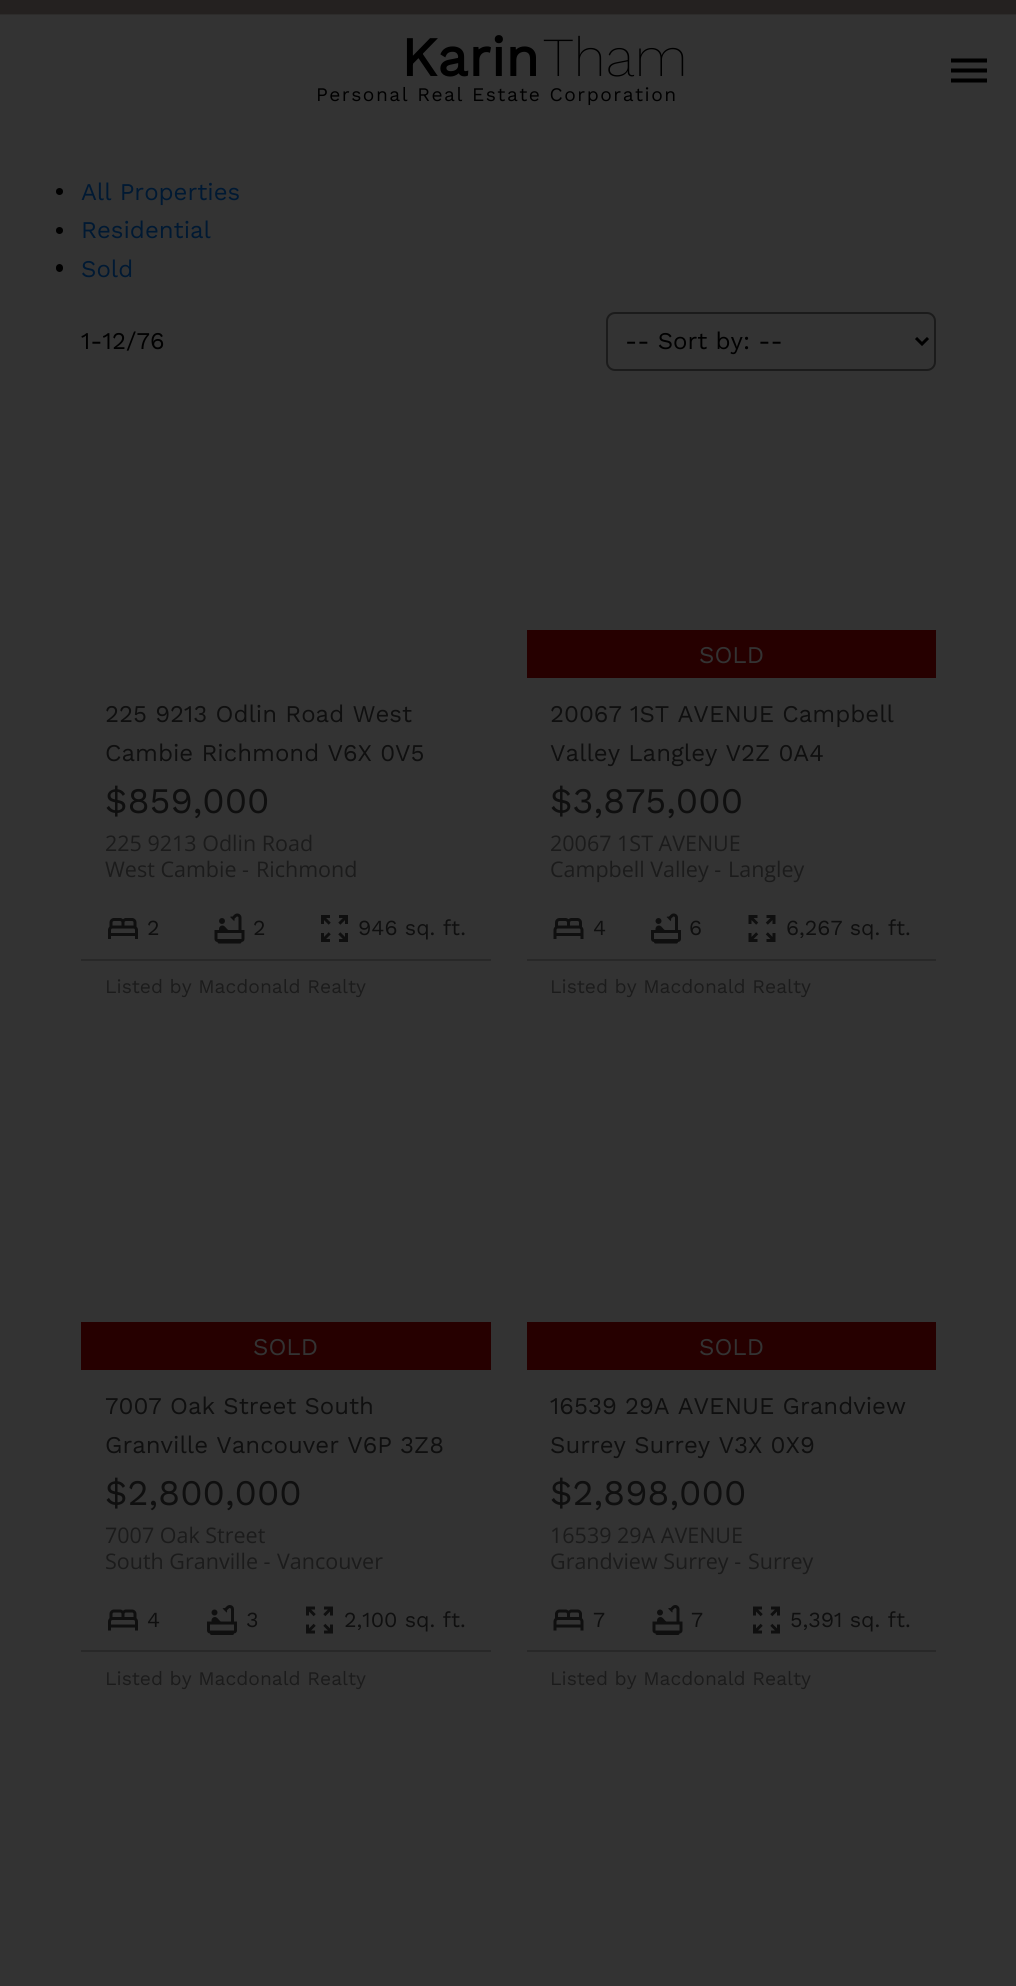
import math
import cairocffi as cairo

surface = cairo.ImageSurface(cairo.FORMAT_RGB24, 1016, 1986)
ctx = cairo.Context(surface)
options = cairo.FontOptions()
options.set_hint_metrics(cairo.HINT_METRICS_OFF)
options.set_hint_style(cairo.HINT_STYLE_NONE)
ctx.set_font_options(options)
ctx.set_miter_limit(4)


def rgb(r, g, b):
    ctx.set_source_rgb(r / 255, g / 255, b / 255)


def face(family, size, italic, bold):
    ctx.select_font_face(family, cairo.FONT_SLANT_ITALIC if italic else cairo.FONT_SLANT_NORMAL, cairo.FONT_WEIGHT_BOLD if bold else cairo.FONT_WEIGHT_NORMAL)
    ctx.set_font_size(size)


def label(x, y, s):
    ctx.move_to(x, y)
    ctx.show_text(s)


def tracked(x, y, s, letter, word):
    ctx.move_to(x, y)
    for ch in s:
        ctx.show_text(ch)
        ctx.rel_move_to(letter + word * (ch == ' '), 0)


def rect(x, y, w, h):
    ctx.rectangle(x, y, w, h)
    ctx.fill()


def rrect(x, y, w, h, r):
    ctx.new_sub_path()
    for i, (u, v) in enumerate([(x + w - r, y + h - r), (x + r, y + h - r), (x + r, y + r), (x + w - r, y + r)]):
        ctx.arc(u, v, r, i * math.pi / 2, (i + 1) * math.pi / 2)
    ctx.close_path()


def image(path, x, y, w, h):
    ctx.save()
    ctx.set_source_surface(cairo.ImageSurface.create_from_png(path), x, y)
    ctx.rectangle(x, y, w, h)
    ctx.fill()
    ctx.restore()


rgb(51, 51, 51)
ctx.paint()
rgb(36, 33, 32)
rect(0, 0, 1016, 14)
rgb(45, 44, 43)
rect(0, 14, 1016, 1)
face('Work Sans', 55, 0, 1)
rgb(0, 0, 0)
label(401, 76, 'Karin')
face('Work Sans ExtraLight', 55, 0, 0)
label(543, 76, 'Tham')
face('Work Sans', 19.25, 0, 0)
tracked(316, 101, 'Personal Real Estate Corporation', 1.5, 0)
ctx.new_path()
ctx.move_to(951, 82.5)
ctx.line_to(987, 82.5)
ctx.line_to(987, 78.5)
ctx.line_to(951, 78.5)
ctx.close_path()
ctx.move_to(951, 72.5)
ctx.line_to(987, 72.5)
ctx.line_to(987, 68.5)
ctx.line_to(951, 68.5)
ctx.close_path()
ctx.move_to(951, 58.5)
ctx.line_to(951, 62.5)
ctx.line_to(987, 62.5)
ctx.line_to(987, 58.5)
ctx.close_path()
ctx.fill()
ctx.arc(59.5, 191.5, 3.5, 0, 2 * math.pi)
ctx.fill()
face('Work Sans', 24, 0, 0)
rgb(0, 25, 51)
label(81, 200, 'All Properties')
rgb(0, 0, 0)
ctx.new_path()
ctx.arc(59.5, 230.5, 3.5, 0, 2 * math.pi)
ctx.fill()
rgb(0, 25, 51)
label(81, 238, 'Residential')
rgb(0, 0, 0)
rrect(56, 264, 7, 8, 3.5)
ctx.fill()
rgb(0, 25, 51)
label(81, 277, 'Sold')
rgb(0, 0, 0)
label(81, 349, '1-12/76')
rrect(607, 313, 328, 57, 8)
rgb(27, 27, 27)
ctx.stroke()
ctx.new_path()
ctx.move_to(916, 338)
ctx.line_to(922, 344)
ctx.line_to(928, 338)
rgb(0, 0, 0)
ctx.set_line_width(3)
ctx.stroke()
label(625, 349, '-- Sort by: --')
rgb(15, 15, 15)
label(105, 722, '225 9213 Odlin Road West')
label(105, 761, 'Cambie Richmond V6X 0V5')
face('Work Sans', 36, 0, 0)
label(105, 813, '$859,000')
face('Open Sans', 21.5, 0, 0)
rgb(27, 27, 27)
label(105, 851, '225 9213 Odlin Road')
label(105, 877, 'West Cambie -')
label(256, 877, 'Richmond')
image('image0.png', 108, 918, 30, 21)
face('Work Sans', 21.5, 0, 0)
rgb(15, 15, 15)
label(147, 935, '2')
image('image1.png', 214, 913, 31, 31)
label(253, 935, '2')
image('image2.png', 321, 915, 27, 27)
label(358, 935, '946 sq. ft.')
rgb(40, 40, 40)
rect(81, 959, 410, 2)
face('Work Sans', 19.25, 0, 0)
rgb(27, 27, 27)
label(105, 993, 'Listed by Macdonald Realty')
rgb(38, 0, 0)
rect(527, 630, 409, 48)
face('Work Sans', 24, 0, 0)
rgb(51, 51, 51)
label(699, 663, 'SOLD')
rgb(15, 15, 15)
label(550, 722, '20067 1ST AVENUE Campbell')
label(550, 761, 'Valley Langley V2Z 0A4')
face('Work Sans', 36, 0, 0)
label(550, 813, '$3,875,000')
face('Open Sans', 21.5, 0, 0)
rgb(27, 27, 27)
label(550, 851, '20067 1ST AVENUE')
label(550, 877, 'Campbell Valley -')
label(728, 877, 'Langley')
image('image3.png', 553, 918, 31, 21)
face('Work Sans', 21.5, 0, 0)
rgb(15, 15, 15)
label(593, 935, '4')
image('image4.png', 651, 913, 30, 31)
label(689, 935, '6')
image('image5.png', 748, 915, 28, 27)
label(786, 935, '6,267 sq. ft.')
rgb(40, 40, 40)
rect(527, 959, 409, 2)
face('Work Sans', 19.25, 0, 0)
rgb(27, 27, 27)
label(550, 993, 'Listed by Macdonald Realty')
rgb(38, 0, 0)
rect(81, 1322, 410, 48)
face('Work Sans', 24, 0, 0)
rgb(51, 51, 51)
label(253, 1355, 'SOLD')
rgb(15, 15, 15)
label(105, 1414, '7007 Oak Street South')
label(105, 1453, 'Granville Vancouver V6P 3Z8')
face('Work Sans', 36, 0, 0)
label(105, 1505, '$2,800,000')
face('Open Sans', 21.5, 0, 0)
rgb(27, 27, 27)
label(105, 1543, '7007 Oak Street')
label(105, 1569, 'South Granville -')
label(277, 1569, 'Vancouver')
image('image6.png', 108, 1609, 30, 22)
face('Work Sans', 21.5, 0, 0)
rgb(15, 15, 15)
label(147, 1627, '4')
image('image7.png', 207, 1605, 30, 30)
label(246, 1627, '3')
image('image8.png', 306, 1606, 27, 28)
label(344, 1627, '2,100 sq. ft.')
rgb(40, 40, 40)
rect(81, 1650, 410, 2)
face('Work Sans', 19.25, 0, 0)
rgb(27, 27, 27)
label(105, 1685, 'Listed by Macdonald Realty')
rgb(38, 0, 0)
rect(527, 1322, 409, 48)
face('Work Sans', 24, 0, 0)
rgb(51, 51, 51)
label(699, 1355, 'SOLD')
rgb(15, 15, 15)
label(550, 1414, '16539 29A AVENUE Grandview')
label(550, 1453, 'Surrey Surrey V3X 0X9')
face('Work Sans', 36, 0, 0)
label(550, 1505, '$2,898,000')
face('Open Sans', 21.5, 0, 0)
rgb(27, 27, 27)
label(550, 1543, '16539 29A AVENUE')
label(550, 1569, 'Grandview Surrey -')
label(748, 1569, 'Surrey')
image('image9.png', 553, 1609, 31, 22)
face('Work Sans', 21.5, 0, 0)
rgb(15, 15, 15)
label(593, 1627, '7')
image('image10.png', 652, 1605, 31, 30)
label(691, 1627, '7')
image('image8.png', 753, 1606, 27, 28)
label(790, 1627, '5,391 sq. ft.')
rgb(40, 40, 40)
rect(527, 1650, 409, 2)
face('Work Sans', 19.25, 0, 0)
rgb(27, 27, 27)
label(550, 1685, 'Listed by Macdonald Realty')
surface.write_to_png('render.png')
